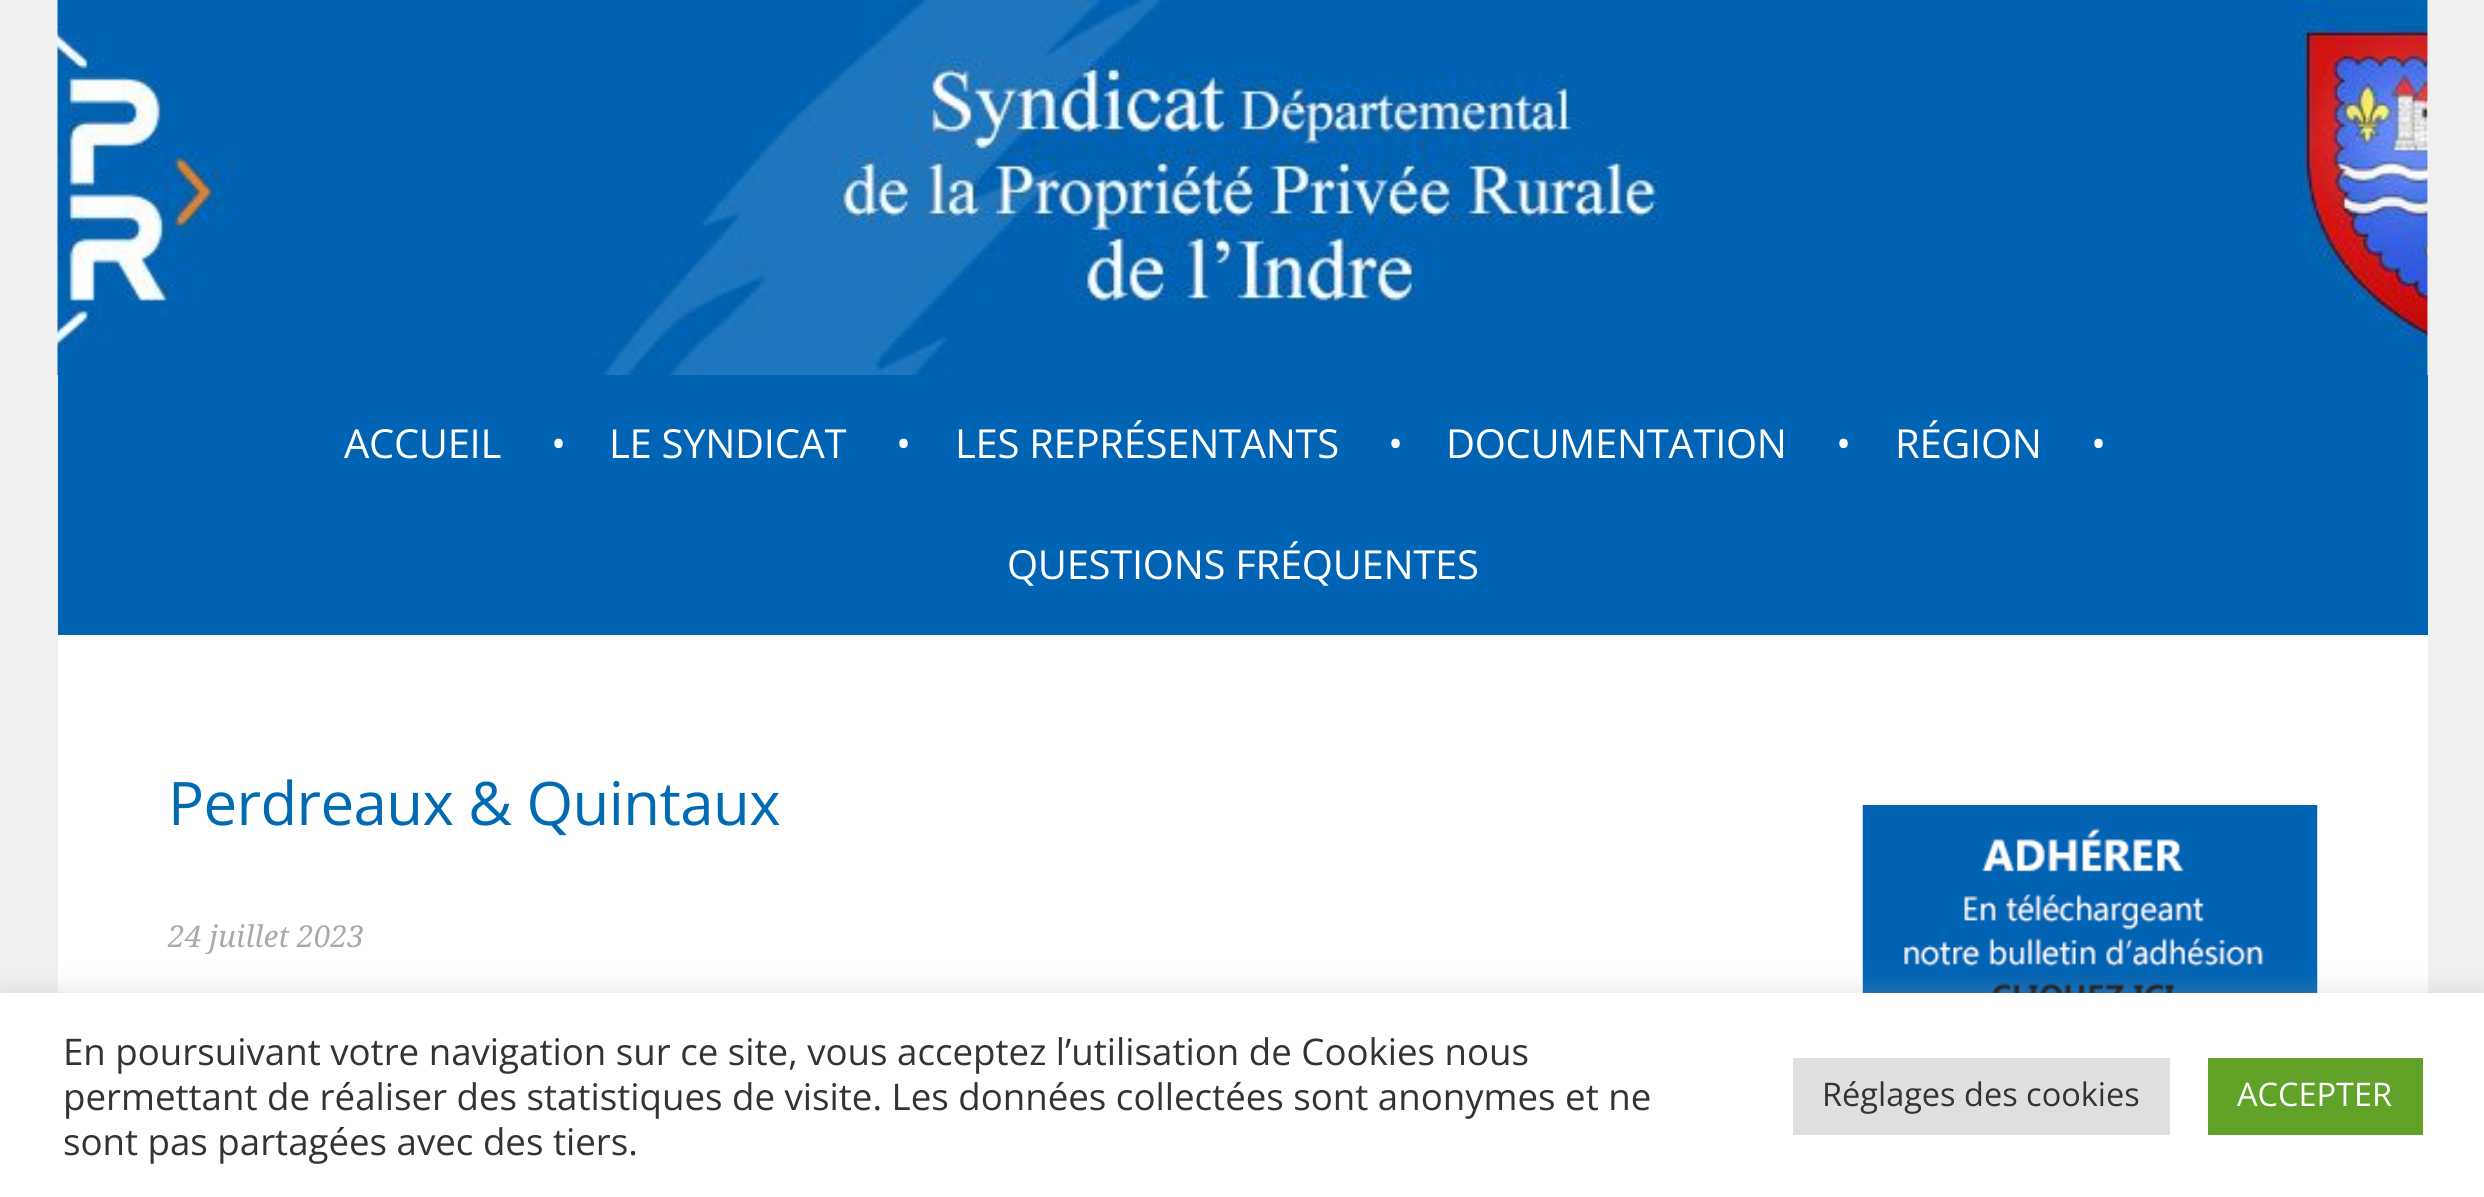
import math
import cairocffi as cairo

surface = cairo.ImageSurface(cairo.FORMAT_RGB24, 2484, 1197)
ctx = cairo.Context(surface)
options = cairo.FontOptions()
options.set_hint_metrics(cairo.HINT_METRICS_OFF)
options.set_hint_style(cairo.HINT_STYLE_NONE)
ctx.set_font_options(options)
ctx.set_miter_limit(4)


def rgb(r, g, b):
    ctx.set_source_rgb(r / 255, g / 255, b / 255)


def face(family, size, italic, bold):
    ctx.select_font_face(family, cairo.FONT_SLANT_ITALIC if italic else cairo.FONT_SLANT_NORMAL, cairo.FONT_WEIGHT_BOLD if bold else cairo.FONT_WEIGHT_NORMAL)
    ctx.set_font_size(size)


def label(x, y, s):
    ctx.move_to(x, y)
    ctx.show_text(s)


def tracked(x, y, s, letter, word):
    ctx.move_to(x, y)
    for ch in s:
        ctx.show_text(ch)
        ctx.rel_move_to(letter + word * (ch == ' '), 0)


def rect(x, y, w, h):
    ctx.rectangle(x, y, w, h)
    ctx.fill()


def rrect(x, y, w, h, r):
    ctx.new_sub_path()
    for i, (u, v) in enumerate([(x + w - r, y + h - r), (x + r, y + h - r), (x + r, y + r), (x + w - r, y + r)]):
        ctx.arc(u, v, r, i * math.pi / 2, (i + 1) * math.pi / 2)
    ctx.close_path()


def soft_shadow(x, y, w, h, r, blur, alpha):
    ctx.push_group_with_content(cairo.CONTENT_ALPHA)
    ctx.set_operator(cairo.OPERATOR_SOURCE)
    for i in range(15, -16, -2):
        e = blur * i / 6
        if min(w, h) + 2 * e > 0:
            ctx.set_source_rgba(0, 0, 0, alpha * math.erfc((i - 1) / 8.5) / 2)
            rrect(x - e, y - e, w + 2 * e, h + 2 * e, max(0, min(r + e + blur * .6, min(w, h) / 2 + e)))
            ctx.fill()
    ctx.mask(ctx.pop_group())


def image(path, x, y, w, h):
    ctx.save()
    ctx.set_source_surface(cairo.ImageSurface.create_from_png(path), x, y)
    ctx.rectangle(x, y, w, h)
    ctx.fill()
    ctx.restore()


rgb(240, 240, 240)
ctx.paint()
rgb(255, 255, 255)
rect(2427, 0, 1, 375)
image('image0.png', 57, 0, 2371, 375)
rgb(0, 99, 180)
rect(58, 375, 2370, 260)
rgb(255, 255, 255)
rect(58, 635, 2370, 358)
face('Open Sans', 40, 0, 0)
tracked(344, 458, 'ACCUEIL', -0.3, 0)
tracked(551, 458, '•', -0.3, 0)
tracked(609, 458, 'LE SYNDICAT', -0.3, 0)
tracked(896, 458, '•', -0.3, 0)
tracked(955, 458, 'LES REPRÉSENTANTS', -0.3, 0)
tracked(1388, 458, '•', -0.3, 0)
tracked(1446, 458, 'DOCUMENTATION', -0.3, 0)
tracked(1836, 458, '•', -0.3, 0)
tracked(1895, 458, 'RÉGION', -0.3, 0)
tracked(2091, 458, '•', -0.3, 0)
tracked(1007, 579, 'QUESTIONS FRÉQUENTES', -0.3, 0)
face('Open Sans', 60, 0, 0)
rgb(0, 106, 179)
tracked(168, 825, 'Perdreaux & Quintaux', -0.6, 0)
face('Droid Serif', 30, 1, 0)
rgb(170, 170, 170)
label(168, 947, '24 juillet 2023')
image('image1.png', 1862, 805, 456, 188)
rgb(172, 171, 171)
soft_shadow(0, 990, 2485, 205, 0, 12.5, 0.3)
rgb(255, 255, 255)
rect(0, 993, 2484, 204)
face('Open Sans', 36.65, 0, 0)
rgb(51, 51, 51)
label(63, 1065, 'En poursuivant votre navigation sur ce site, vous acceptez l’utilisation de Cookies nous')
label(63, 1110, 'permettant de réaliser des statistiques de visite. Les données collectées sont anonymes et ne')
label(63, 1155, 'sont pas partagées avec des tiers.')
rgb(222, 223, 224)
rect(1793, 1058, 377, 77)
face('Open Sans', 32.5, 0, 0)
rgb(51, 51, 51)
label(1822, 1106, 'Réglages des cookies')
rgb(97, 162, 41)
rect(2208, 1058, 215, 77)
rgb(255, 255, 255)
label(2237, 1106, 'ACCEPTER')
surface.write_to_png('render.png')
